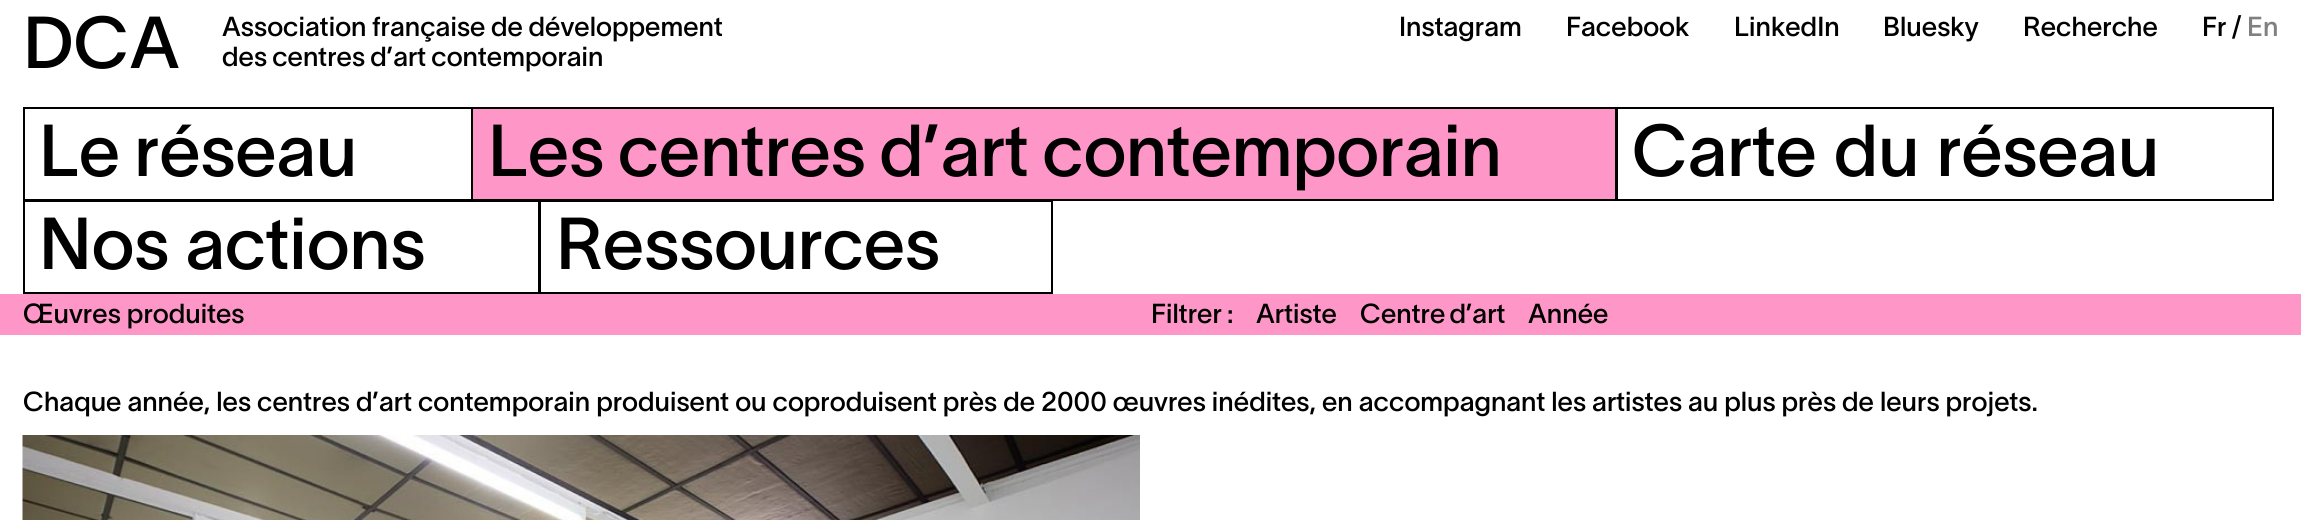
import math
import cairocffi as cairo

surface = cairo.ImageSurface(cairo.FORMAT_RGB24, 2301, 520)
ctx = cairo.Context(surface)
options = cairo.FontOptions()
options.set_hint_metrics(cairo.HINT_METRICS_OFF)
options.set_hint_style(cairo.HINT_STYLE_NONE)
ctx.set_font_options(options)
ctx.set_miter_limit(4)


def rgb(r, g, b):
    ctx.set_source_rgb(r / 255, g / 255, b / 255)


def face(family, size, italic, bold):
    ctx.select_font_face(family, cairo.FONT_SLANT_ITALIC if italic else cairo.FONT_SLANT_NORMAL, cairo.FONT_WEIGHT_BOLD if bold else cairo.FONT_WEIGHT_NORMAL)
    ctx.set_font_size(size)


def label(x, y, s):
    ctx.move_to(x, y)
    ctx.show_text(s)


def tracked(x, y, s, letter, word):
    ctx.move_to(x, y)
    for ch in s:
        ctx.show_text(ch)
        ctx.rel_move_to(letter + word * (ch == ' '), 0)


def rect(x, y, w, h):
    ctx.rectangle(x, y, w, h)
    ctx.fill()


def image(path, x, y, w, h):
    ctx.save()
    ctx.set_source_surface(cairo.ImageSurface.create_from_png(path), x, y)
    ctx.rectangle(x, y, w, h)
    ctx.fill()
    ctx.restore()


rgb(255, 255, 255)
ctx.paint()
face('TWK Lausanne', 72, 0, 0)
rgb(0, 0, 0)
label(23, 68, 'DCA')
face('TWK Lausanne', 27, 0, 0)
tracked(222, 36, 'Association française de développement', 0, -0.5)
tracked(222, 66, 'des centres d’art contemporain', 0, -1)
label(1399, 36, 'Instagram')
label(1566, 36, 'Facebook')
label(1734, 36, 'LinkedIn')
label(1883, 36, 'Bluesky')
label(2023, 36, 'Recherche')
label(2202, 36, 'Fr')
label(2232, 36, '/')
rgb(128, 128, 128)
label(2247, 36, 'En')
ctx.rectangle(24, 108, 448, 92)
rgb(0, 0, 0)
ctx.stroke()
face('TWK Lausanne', 72, 0, 0)
tracked(39, 176, 'Le réseau', 0, -2)
rgb(255, 150, 200)
ctx.rectangle(472, 108, 1144, 92)
ctx.fill_preserve()
rgb(0, 0, 0)
ctx.stroke()
tracked(488, 176, 'Les centres d’art contemporain', 0, -2.5)
ctx.rectangle(1617, 108, 656, 92)
ctx.stroke()
tracked(1632, 176, 'Carte du réseau', 0, 1)
ctx.rectangle(24, 201, 515, 92)
ctx.stroke()
label(39, 269, 'Nos actions')
ctx.rectangle(540, 201, 512, 92)
ctx.stroke()
label(556, 269, 'Ressources')
rgb(255, 150, 200)
rect(0, 294, 2301, 41)
face('TWK Lausanne', 27, 0, 0)
rgb(0, 0, 0)
label(23, 323, 'Œuvres produites')
label(1151, 323, 'Filtrer')
label(1227, 323, ':')
label(1256, 323, 'Artiste')
tracked(1360, 323, 'Centre d’art', 0, -2)
label(1528, 323, 'Année')
tracked(23, 411, 'Chaque année, les centres d’art contemporain produisent ou coproduisent près de 2000 œuvres inédites, en accompagnant les artistes au plus près de leurs projets.', 0, -0.1)
image('image0.png', 22, 435, 1118, 85)
surface.write_to_png('render.png')
